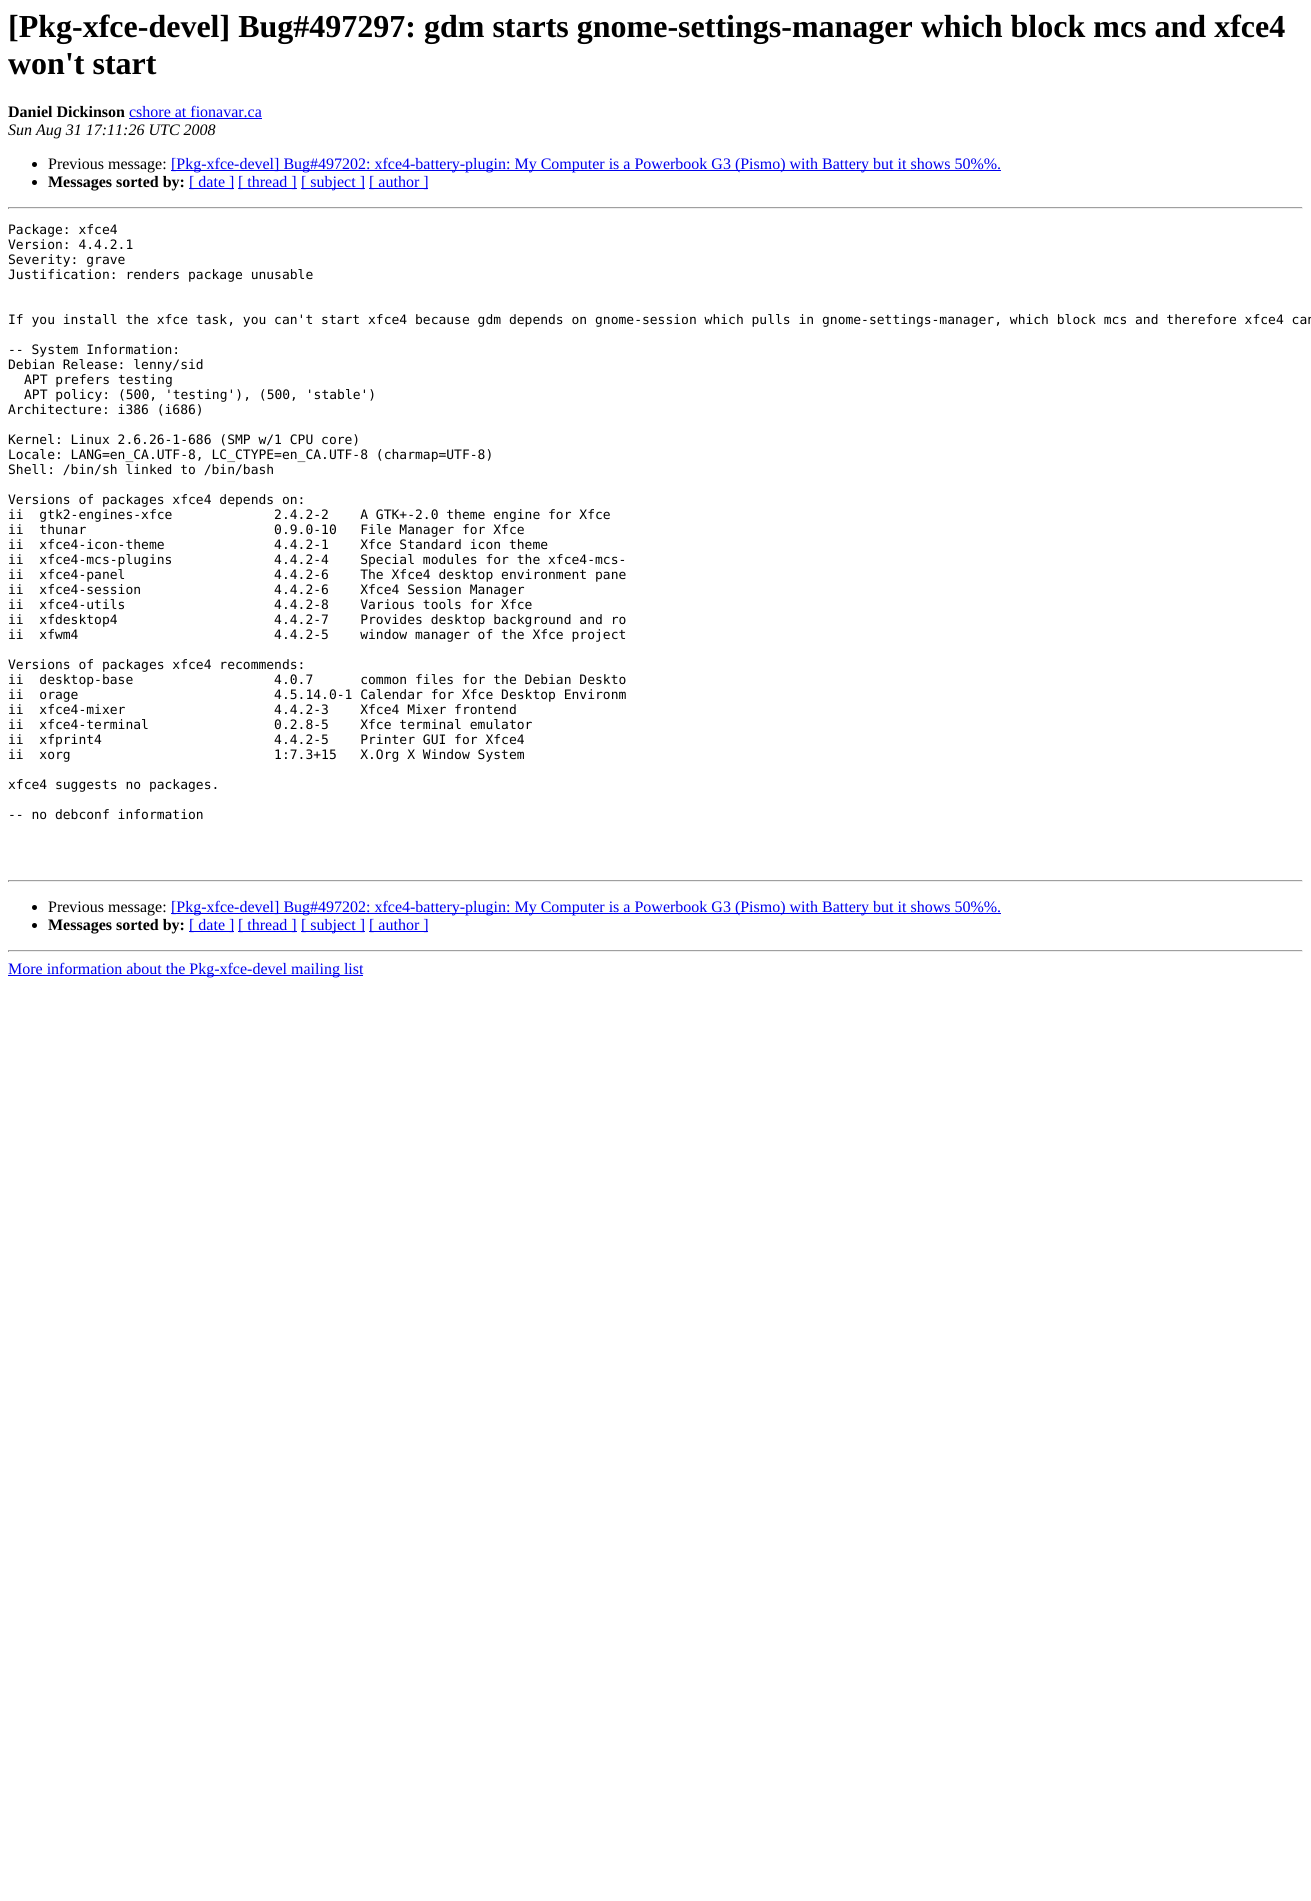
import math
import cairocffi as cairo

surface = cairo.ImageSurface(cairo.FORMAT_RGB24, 1311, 1901)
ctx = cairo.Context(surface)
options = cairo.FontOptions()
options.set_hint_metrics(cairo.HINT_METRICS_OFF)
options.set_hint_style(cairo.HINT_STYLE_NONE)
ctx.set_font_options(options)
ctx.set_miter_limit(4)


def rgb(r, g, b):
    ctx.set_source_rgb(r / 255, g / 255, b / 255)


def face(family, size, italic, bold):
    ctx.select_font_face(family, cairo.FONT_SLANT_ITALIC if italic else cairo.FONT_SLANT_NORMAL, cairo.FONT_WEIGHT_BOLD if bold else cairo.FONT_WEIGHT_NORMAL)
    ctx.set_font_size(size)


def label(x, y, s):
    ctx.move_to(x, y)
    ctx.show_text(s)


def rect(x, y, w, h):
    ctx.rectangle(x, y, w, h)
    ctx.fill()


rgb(255, 255, 255)
ctx.paint()
face('Liberation Serif', 32, 0, 1)
rgb(0, 0, 0)
label(8, 37, '[Pkg-xfce-devel] Bug#497297: gdm starts gnome-settings-manager which block mcs and xfce4')
label(8, 74, 'won\'t start')
face('Liberation Serif', 16, 0, 1)
label(8, 117, 'Daniel Dickinson')
face('Liberation Serif', 16, 0, 0)
rgb(0, 0, 238)
label(129, 117, 'cshore at fionavar.ca')
rect(129, 118, 133, 1)
face('Liberation Serif', 16, 1, 0)
rgb(0, 0, 0)
label(8, 135, 'Sun Aug 31 17:11:26 UTC 2008')
ctx.new_path()
ctx.arc(34.5, 164.5, 2.5, 0, 2 * math.pi)
ctx.fill()
face('Liberation Serif', 16, 0, 0)
label(48, 169, 'Previous message:')
rgb(0, 0, 238)
rect(171, 170, 830, 1)
label(171, 169, '[Pkg-xfce-devel] Bug#497202: xfce4-battery-plugin: My Computer is a Powerbook G3 (Pismo) with Battery but it shows 50%%.')
rgb(0, 0, 0)
ctx.new_path()
ctx.arc(34.5, 182.5, 2.5, 0, 2 * math.pi)
ctx.fill()
face('Liberation Serif', 16, 0, 1)
label(48, 187, 'Messages sorted by:')
rgb(0, 0, 238)
rect(189, 188, 45, 1)
face('Liberation Serif', 16, 0, 0)
label(189, 187, '[ date ]')
rect(238, 188, 59, 1)
label(238, 187, '[ thread ]')
rect(301, 188, 64, 1)
label(301, 187, '[ subject ]')
rect(369, 188, 59, 1)
label(369, 187, '[ author ]')
rgb(159, 159, 159)
rect(8, 207, 1295, 1)
rgb(238, 238, 238)
rect(1302, 207, 1, 2)
rect(8, 208, 1295, 1)
rgb(159, 159, 159)
rect(8, 207, 1, 2)
face('DejaVu Sans Mono', 13, 0, 0)
rgb(0, 0, 0)
label(8, 234, 'Package: xfce4')
label(8, 249, 'Version: 4.4.2.1')
label(8, 264, 'Severity: grave')
label(8, 279, 'Justification: renders package unusable')
label(8, 324, 'If you install the xfce task, you can\'t start xfce4 because gdm depends on gnome-session which pulls in gnome-settings-manager, which block mcs and therefore xfce4 can')
label(8, 354, '-- System Information:')
label(8, 369, 'Debian Release: lenny/sid')
label(24, 384, 'APT prefers testing')
label(24, 399, 'APT policy: (500, \'testing\'), (500, \'stable\')')
label(8, 414, 'Architecture: i386 (i686)')
label(8, 444, 'Kernel: Linux 2.6.26-1-686 (SMP w/1 CPU core)')
label(8, 459, 'Locale: LANG=en_CA.UTF-8, LC_CTYPE=en_CA.UTF-8 (charmap=UTF-8)')
label(8, 474, 'Shell: /bin/sh linked to /bin/bash')
label(8, 504, 'Versions of packages xfce4 depends on:')
label(8, 519, 'ii  gtk2-engines-xfce             2.4.2-2    A GTK+-2.0 theme engine for Xfce')
label(8, 534, 'ii  thunar                        0.9.0-10   File Manager for Xfce')
label(8, 549, 'ii  xfce4-icon-theme              4.4.2-1    Xfce Standard icon theme')
label(8, 564, 'ii  xfce4-mcs-plugins             4.4.2-4    Special modules for the xfce4-mcs-')
label(8, 579, 'ii  xfce4-panel                   4.4.2-6    The Xfce4 desktop environment pane')
label(8, 594, 'ii  xfce4-session                 4.4.2-6    Xfce4 Session Manager')
label(8, 609, 'ii  xfce4-utils                   4.4.2-8    Various tools for Xfce')
label(8, 624, 'ii  xfdesktop4                    4.4.2-7    Provides desktop background and ro')
label(8, 639, 'ii  xfwm4                         4.4.2-5    window manager of the Xfce project')
label(8, 669, 'Versions of packages xfce4 recommends:')
label(8, 684, 'ii  desktop-base                  4.0.7      common files for the Debian Deskto')
label(8, 699, 'ii  orage                         4.5.14.0-1 Calendar for Xfce Desktop Environm')
label(8, 714, 'ii  xfce4-mixer                   4.4.2-3    Xfce4 Mixer frontend')
label(8, 729, 'ii  xfce4-terminal                0.2.8-5    Xfce terminal emulator')
label(8, 744, 'ii  xfprint4                      4.4.2-5    Printer GUI for Xfce4')
label(8, 759, 'ii  xorg                          1:7.3+15   X.Org X Window System')
label(8, 789, 'xfce4 suggests no packages.')
label(8, 819, '-- no debconf information')
rgb(159, 159, 159)
rect(8, 880, 1295, 1)
rgb(238, 238, 238)
rect(1302, 880, 1, 2)
rect(8, 881, 1295, 1)
rgb(159, 159, 159)
rect(8, 880, 1, 2)
rgb(0, 0, 0)
ctx.new_path()
ctx.arc(34.5, 907.5, 2.5, 0, 2 * math.pi)
ctx.fill()
face('Liberation Serif', 16, 0, 0)
label(48, 912, 'Previous message:')
rgb(0, 0, 238)
rect(171, 913, 830, 1)
label(171, 912, '[Pkg-xfce-devel] Bug#497202: xfce4-battery-plugin: My Computer is a Powerbook G3 (Pismo) with Battery but it shows 50%%.')
rgb(0, 0, 0)
ctx.new_path()
ctx.arc(34.5, 925.5, 2.5, 0, 2 * math.pi)
ctx.fill()
face('Liberation Serif', 16, 0, 1)
label(48, 930, 'Messages sorted by:')
rgb(0, 0, 238)
rect(189, 931, 45, 1)
face('Liberation Serif', 16, 0, 0)
label(189, 930, '[ date ]')
rect(238, 931, 59, 1)
label(238, 930, '[ thread ]')
rect(301, 931, 64, 1)
label(301, 930, '[ subject ]')
rect(369, 931, 59, 1)
label(369, 930, '[ author ]')
rgb(159, 159, 159)
rect(8, 950, 1295, 1)
rgb(238, 238, 238)
rect(1302, 950, 1, 2)
rect(8, 951, 1295, 1)
rgb(159, 159, 159)
rect(8, 950, 1, 2)
rgb(0, 0, 238)
rect(8, 975, 355, 1)
label(8, 974, 'More information about the Pkg-xfce-devel mailing list')
surface.write_to_png('render.png')
